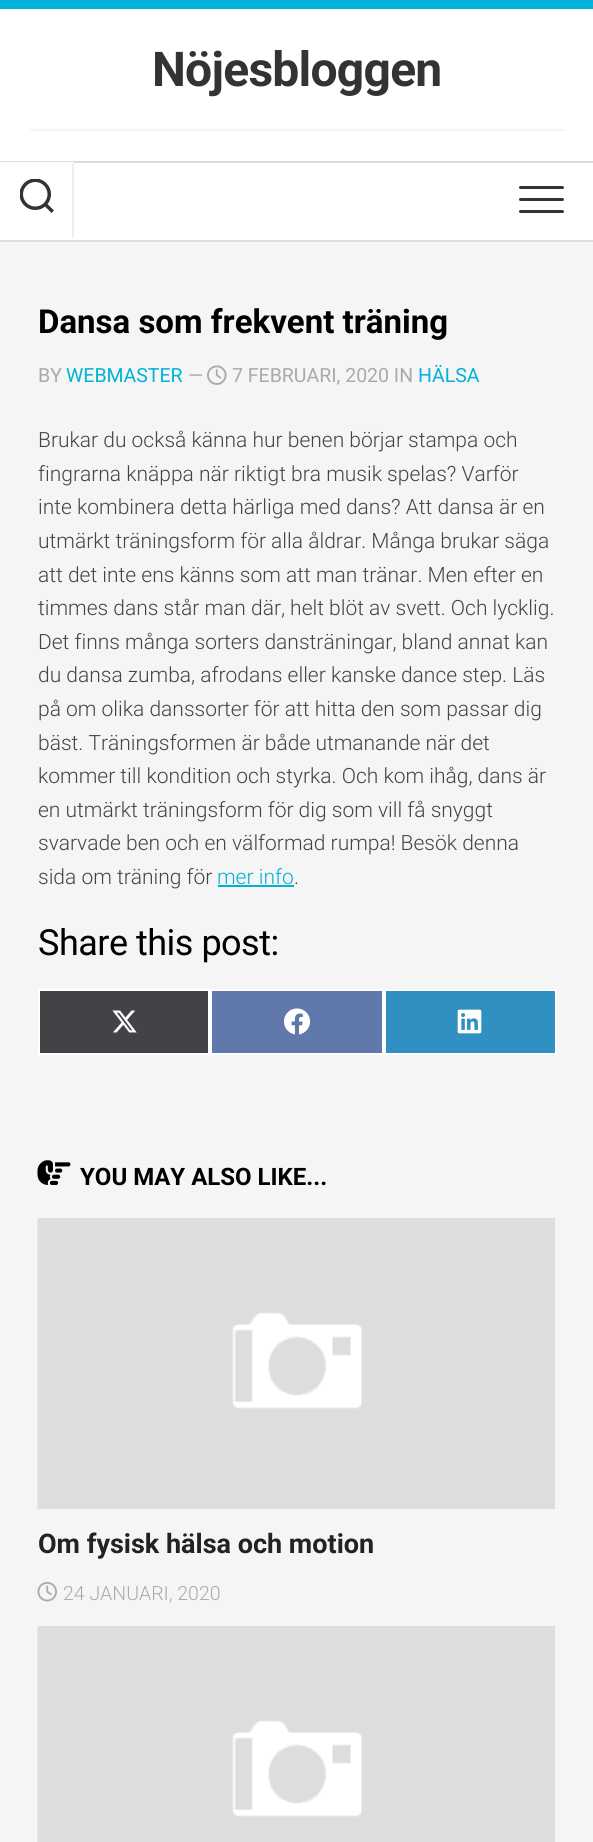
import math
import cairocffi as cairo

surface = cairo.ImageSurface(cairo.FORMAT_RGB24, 593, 1842)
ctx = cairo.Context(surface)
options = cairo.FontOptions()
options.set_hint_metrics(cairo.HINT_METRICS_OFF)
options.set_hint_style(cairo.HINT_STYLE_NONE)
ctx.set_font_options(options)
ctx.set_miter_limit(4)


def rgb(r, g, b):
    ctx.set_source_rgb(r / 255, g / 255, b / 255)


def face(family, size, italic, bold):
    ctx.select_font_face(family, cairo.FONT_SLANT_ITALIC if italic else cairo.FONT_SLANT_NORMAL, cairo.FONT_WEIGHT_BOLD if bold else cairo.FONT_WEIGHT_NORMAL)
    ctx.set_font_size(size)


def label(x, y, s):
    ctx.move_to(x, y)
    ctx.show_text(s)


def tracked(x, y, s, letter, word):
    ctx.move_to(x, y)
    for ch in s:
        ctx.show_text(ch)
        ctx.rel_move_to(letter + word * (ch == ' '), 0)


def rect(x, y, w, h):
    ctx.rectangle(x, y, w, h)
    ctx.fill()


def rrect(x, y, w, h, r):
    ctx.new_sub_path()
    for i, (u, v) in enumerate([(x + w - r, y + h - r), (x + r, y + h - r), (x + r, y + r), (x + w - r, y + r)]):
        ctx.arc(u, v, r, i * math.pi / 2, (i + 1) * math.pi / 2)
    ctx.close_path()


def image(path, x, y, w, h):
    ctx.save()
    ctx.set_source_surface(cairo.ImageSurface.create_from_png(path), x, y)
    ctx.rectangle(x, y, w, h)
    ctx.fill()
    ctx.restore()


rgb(245, 245, 245)
ctx.paint()
rgb(255, 255, 255)
rect(0, 9, 593, 231)
rgb(0, 178, 215)
rect(0, 0, 593, 9)
rgb(221, 221, 221)
rect(0, 161, 593, 2)
face('Roboto', 48, 0, 1)
rgb(51, 51, 51)
tracked(152, 86, 'Nöjesbloggen', -0.75, 0)
rgb(245, 245, 245)
rect(30, 129, 534, 2)
rgb(255, 255, 255)
rect(0, 162, 74, 1)
rgb(238, 238, 238)
ctx.new_path()
ctx.move_to(74, 162)
ctx.line_to(74, 238)
ctx.line_to(72, 237)
ctx.line_to(72, 164)
ctx.close_path()
ctx.fill()
image('image0.png', 20, 179, 34, 34)
rgb(221, 221, 221)
rect(0, 240, 593, 2)
rgb(51, 51, 51)
rrect(519, 186, 45, 3, 1.5)
ctx.fill()
rrect(519, 198, 45, 3, 1.5)
ctx.fill()
rrect(519, 210, 45, 3, 1.5)
ctx.fill()
face('Roboto', 33, 0, 1)
rgb(0, 0, 0)
label(38, 333, 'Dansa som frekvent träning')
face('Roboto', 19.5, 0, 0)
rgb(170, 170, 170)
label(38, 382, 'BY')
rgb(0, 178, 215)
label(66, 382, 'WEBMASTER')
rgb(170, 170, 170)
label(188, 382, '—')
image('image1.png', 207, 365, 20, 20)
label(232, 382, '7 FEBRUARI, 2020 IN')
rgb(0, 178, 215)
label(418, 382, 'HÄLSA')
face('Roboto Light', 21, 0, 0)
rgb(68, 68, 68)
label(38, 447, 'Brukar du också känna hur benen börjar stampa och')
label(38, 481, 'fingrarna knäppa när riktigt bra musik spelas? Varför')
label(38, 514, 'inte kombinera detta härliga med dans? Att dansa är en')
label(38, 548, 'utmärkt träningsform för alla åldrar. Många brukar säga')
label(38, 582, 'att det inte ens känns som att man tränar. Men efter en')
label(38, 615, 'timmes dans står man där, helt blöt av svett. Och lycklig.')
label(38, 649, 'Det finns många sorters dansträningar, bland annat kan')
label(38, 682, 'du dansa zumba, afrodans eller kanske dance step. Läs')
label(38, 716, 'på om olika danssorter för att hitta den som passar dig')
label(38, 750, 'bäst. Träningsformen är både utmanande när det')
label(38, 783, 'kommer till kondition och styrka. Och kom ihåg, dans är')
label(38, 817, 'en utmärkt träningsform för dig som vill få snyggt')
label(38, 850, 'svarvade ben och en välformad rumpa! Besök denna')
label(38, 884, 'sida om träning för')
rgb(0, 178, 215)
label(217, 884, 'mer info')
rect(218, 885, 76, 2)
rgb(68, 68, 68)
label(294, 884, '.')
face('Roboto', 36, 0, 0)
rgb(0, 0, 0)
tracked(38, 955, 'Share this post:', -0.5, 0)
rgb(65, 67, 70)
ctx.rectangle(39, 990, 170, 64)
ctx.fill_preserve()
rgb(255, 255, 255)
ctx.stroke()
image('image2.png', 112, 1010, 25, 23)
rgb(96, 120, 171)
ctx.rectangle(211, 990, 172, 64)
ctx.fill_preserve()
rgb(255, 255, 255)
ctx.stroke()
image('image3.png', 284, 1008, 27, 27)
rgb(49, 144, 194)
ctx.rectangle(385, 990, 171, 64)
ctx.fill_preserve()
rgb(255, 255, 255)
ctx.stroke()
image('image4.png', 457, 1009, 25, 25)
image('image5.png', 37, 1160, 34, 25)
face('Roboto', 24, 0, 1)
rgb(0, 0, 0)
label(80, 1185, 'YOU MAY ALSO LIKE...')
image('image6.png', 37, 1218, 518, 291)
face('Roboto', 27, 0, 1)
rgb(34, 34, 34)
label(38, 1553, 'Om fysisk hälsa och motion')
image('image7.png', 37, 1582, 20, 20)
face('Roboto Light', 19.5, 0, 0)
rgb(170, 170, 170)
label(63, 1600, '24 JANUARI, 2020')
image('image8.png', 37, 1626, 518, 216)
surface.write_to_png('render.png')
